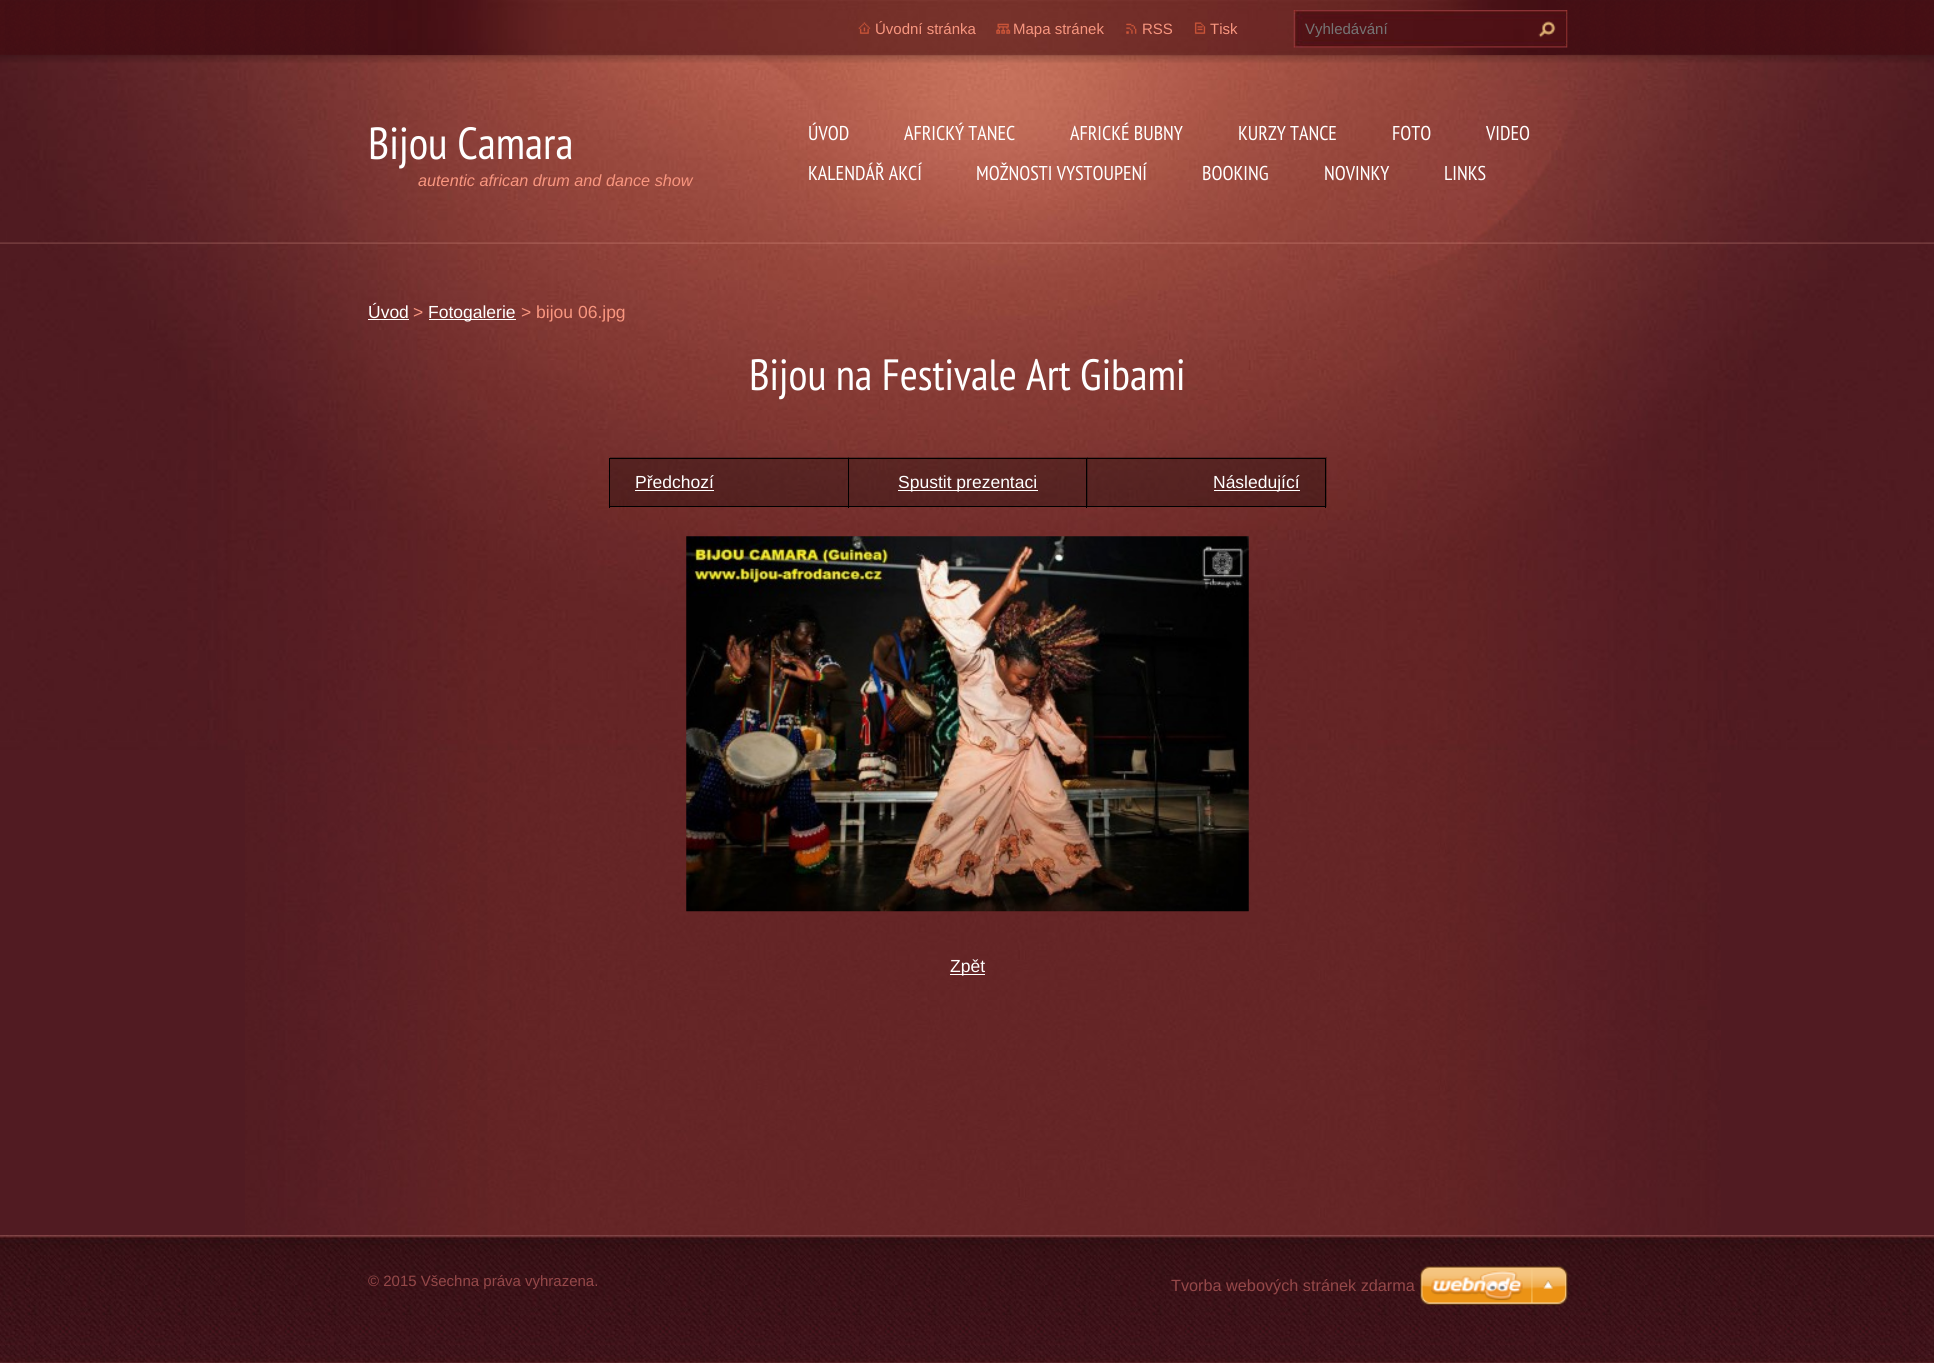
import math
import cairocffi as cairo

surface = cairo.ImageSurface(cairo.FORMAT_RGB24, 1934, 1363)
ctx = cairo.Context(surface)
options = cairo.FontOptions()
options.set_hint_metrics(cairo.HINT_METRICS_OFF)
options.set_hint_style(cairo.HINT_STYLE_NONE)
ctx.set_font_options(options)
ctx.set_miter_limit(4)


def rgb(r, g, b):
    ctx.set_source_rgb(r / 255, g / 255, b / 255)


def face(family, size, italic, bold):
    ctx.select_font_face(family, cairo.FONT_SLANT_ITALIC if italic else cairo.FONT_SLANT_NORMAL, cairo.FONT_WEIGHT_BOLD if bold else cairo.FONT_WEIGHT_NORMAL)
    ctx.set_font_size(size)


def label(x, y, s):
    ctx.move_to(x, y)
    ctx.show_text(s)


def rect(x, y, w, h):
    ctx.rectangle(x, y, w, h)
    ctx.fill()


def image(path, x, y, w, h):
    ctx.save()
    ctx.set_source_surface(cairo.ImageSurface.create_from_png(path), x, y)
    ctx.rectangle(x, y, w, h)
    ctx.fill()
    ctx.restore()


rgb(81, 27, 34)
ctx.paint()
image('image0.png', 245, 750, 1476, 485)
image('image1.png', 0, 54, 1934, 696)
image('image2.png', 0, 242, 1934, 2)
image('image3.png', 0, 0, 1934, 63)
image('image4.png', 368, 0, 1188, 55)
image('image5.png', 858, 22, 13, 12)
face('Liberation Sans', 15, 0, 0)
rgb(249, 150, 127)
label(875, 34, 'Úvodní stránka')
image('image6.png', 996, 23, 15, 11)
label(1013, 34, 'Mapa stránek')
image('image7.png', 1126, 23, 11, 11)
label(1142, 34, 'RSS')
image('image8.png', 1194, 22, 12, 12)
label(1210, 34, 'Tisk')
image('image9.png', 1293, 10, 275, 38)
rgb(117, 117, 117)
label(1305, 34, 'Vyhledávání')
image('image10.png', 1538, 21, 18, 17)
face('PT Sans Narrow', 45, 0, 0)
rgb(255, 255, 255)
label(368, 159, 'Bijou Camara')
face('Liberation Sans', 16.25, 1, 0)
rgb(249, 150, 127)
label(418, 186, 'autentic african drum and dance show')
face('PT Sans Narrow', 20, 0, 0)
rgb(255, 255, 255)
label(808, 140, 'ÚVOD')
label(904, 140, 'AFRICKÝ TANEC')
label(1070, 140, 'AFRICKÉ BUBNY')
label(1238, 140, 'KURZY TANCE')
label(1392, 140, 'FOTO')
label(1486, 140, 'VIDEO')
label(808, 180, 'KALENDÁŘ AKCÍ')
label(976, 180, 'MOŽNOSTI VYSTOUPENÍ')
label(1202, 180, 'BOOKING')
label(1324, 180, 'NOVINKY')
label(1444, 180, 'LINKS')
face('Liberation Sans', 17.5, 0, 0)
label(368, 318, 'Úvod')
rect(368, 319, 41, 1)
rgb(249, 150, 127)
label(413, 318, '>')
rgb(255, 255, 255)
rect(429, 319, 87, 1)
label(428, 318, 'Fotogalerie')
rgb(249, 150, 127)
label(521, 318, '> bijou 06.jpg')
face('PT Sans Narrow', 43.75, 0, 0)
rgb(255, 255, 255)
label(749, 390, 'Bijou na Festivale Art Gibami')
ctx.set_source_rgba(0, 0, 0, 0.27)
rect(610, 457, 239, 49)
rect(848, 457, 240, 49)
rect(1087, 457, 240, 50)
rgb(0, 0, 0)
rect(609, 458, 717, 1)
rect(609, 458, 1, 50)
rect(1325, 458, 1, 50)
rect(1086, 506, 240, 1)
rect(1086, 458, 1, 50)
rect(848, 506, 240, 1)
rect(848, 458, 1, 50)
rect(609, 506, 240, 1)
face('Liberation Sans', 17.5, 0, 0)
rgb(255, 255, 255)
label(635, 488, 'Předchozí')
rect(635, 490, 79, 1)
rect(898, 490, 140, 1)
label(898, 488, 'Spustit prezentaci')
rect(1214, 490, 86, 1)
label(1213, 488, 'Následující')
image('image11.png', 686, 536, 563, 376)
rect(950, 974, 35, 1)
label(950, 972, 'Zpět')
image('image12.png', 0, 1235, 1934, 128)
ctx.save()
ctx.rectangle(368, 1235, 600, 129)
ctx.clip()
face('Liberation Sans', 15, 0, 0)
rgb(149, 72, 73)
label(368, 1286, '© 2015 Všechna práva vyhrazena.')
ctx.restore()
face('Liberation Sans', 16.25, 0, 0)
rgb(149, 72, 73)
label(1171, 1291, 'Tvorba webových stránek zdarma')
image('image13.png', 1420, 1266, 148, 39)
surface.write_to_png('render.png')
